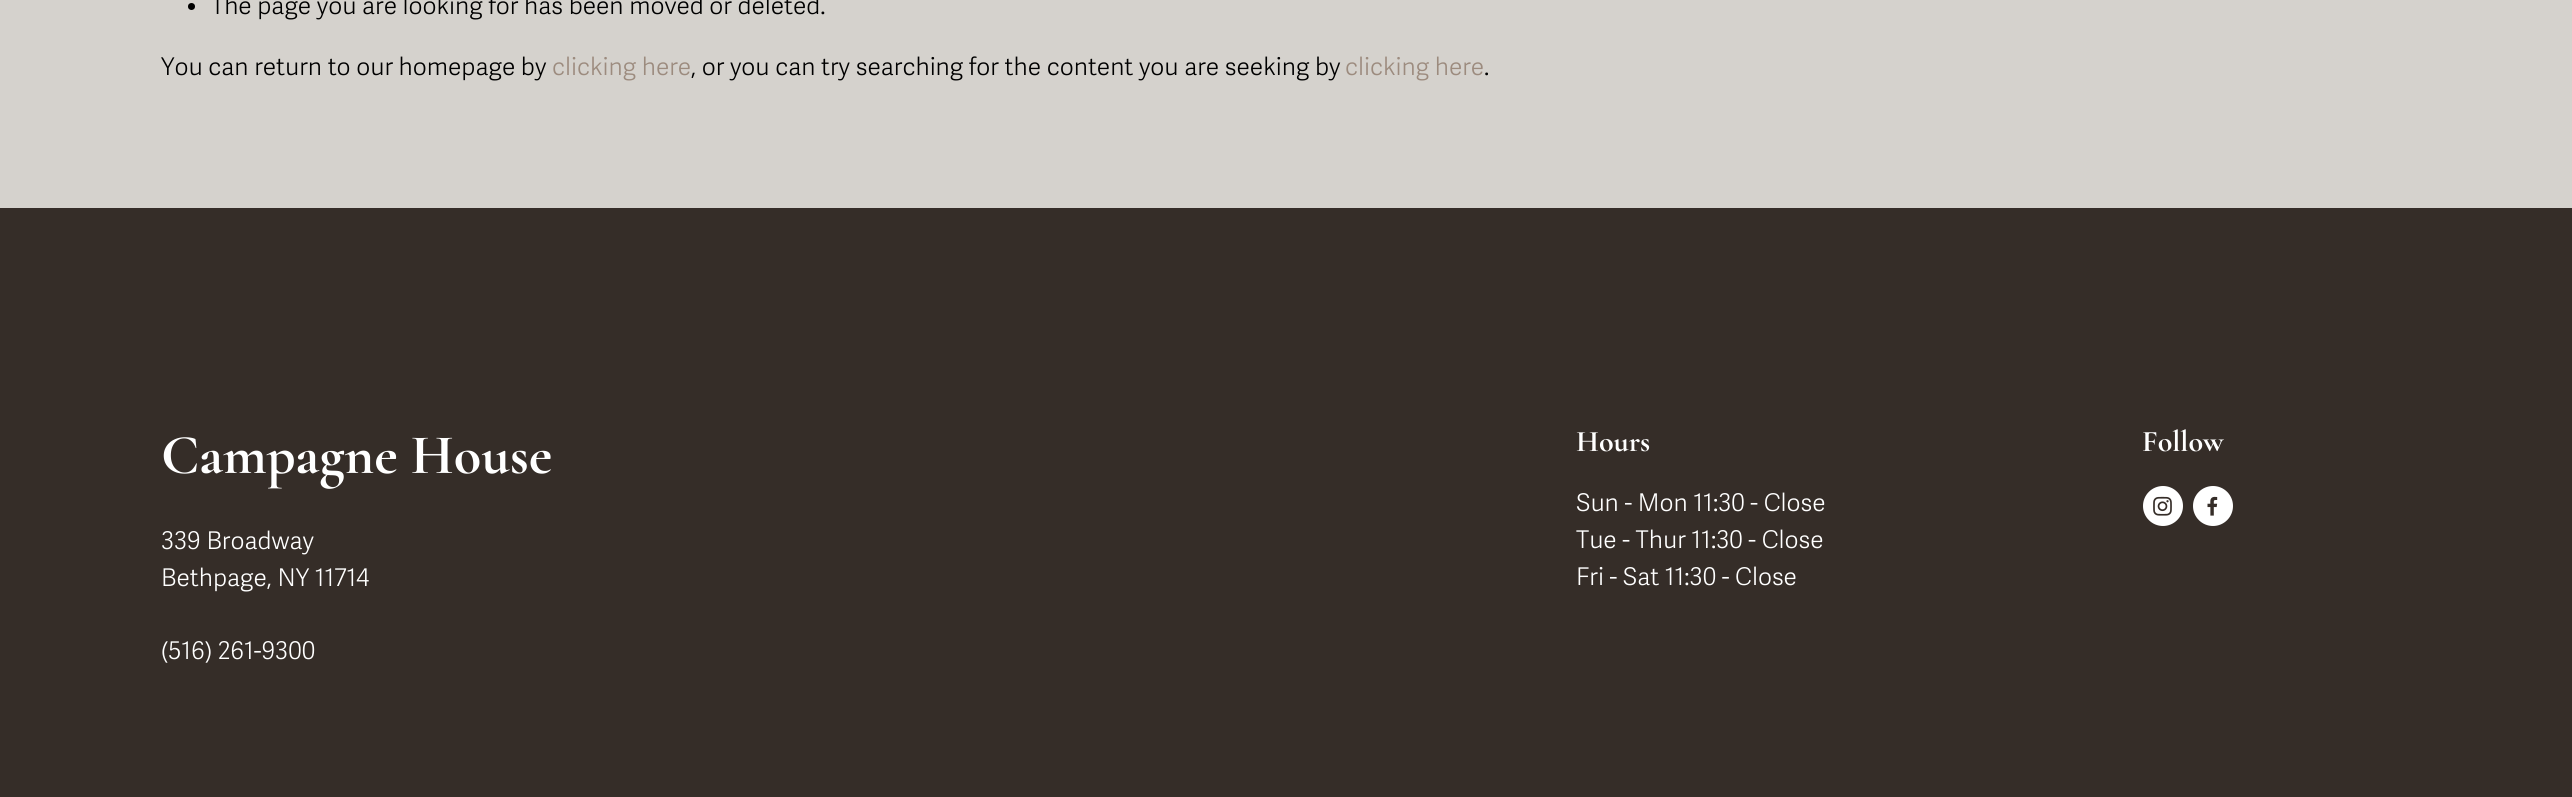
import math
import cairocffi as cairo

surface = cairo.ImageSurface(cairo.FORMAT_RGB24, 2572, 797)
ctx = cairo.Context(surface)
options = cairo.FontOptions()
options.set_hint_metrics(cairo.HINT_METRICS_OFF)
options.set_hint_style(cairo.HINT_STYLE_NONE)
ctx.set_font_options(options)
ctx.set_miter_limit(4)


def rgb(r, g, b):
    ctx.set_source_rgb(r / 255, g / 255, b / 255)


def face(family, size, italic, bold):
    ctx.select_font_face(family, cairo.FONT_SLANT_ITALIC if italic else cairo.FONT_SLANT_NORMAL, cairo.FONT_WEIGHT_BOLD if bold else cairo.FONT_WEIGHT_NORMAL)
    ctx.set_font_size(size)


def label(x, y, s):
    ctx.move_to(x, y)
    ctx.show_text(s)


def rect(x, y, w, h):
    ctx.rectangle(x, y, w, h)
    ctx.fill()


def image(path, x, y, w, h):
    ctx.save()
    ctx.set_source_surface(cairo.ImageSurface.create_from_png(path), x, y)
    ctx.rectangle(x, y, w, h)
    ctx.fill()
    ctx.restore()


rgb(213, 210, 205)
ctx.paint()
rgb(0, 0, 0)
ctx.arc(191.5, 6.5, 3.5, 0, 2 * math.pi)
ctx.fill()
face('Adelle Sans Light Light', 24.4, 0, 0)
label(211, 14, 'The page you are looking for has been moved or deleted.')
label(161, 75, 'You can return to our homepage by')
rgb(156, 139, 126)
label(552, 75, 'clicking here')
rgb(0, 0, 0)
label(691, 75, ', or you can try searching for the content you are seeking by')
rgb(156, 139, 126)
label(1345, 75, 'clicking here')
rgb(0, 0, 0)
label(1484, 75, '.')
rgb(53, 45, 40)
rect(0, 208, 2572, 589)
face('Cormorant Garamond Light', 56.25, 0, 0)
rgb(255, 255, 255)
label(161, 473, 'Campagne House')
face('Adelle Sans Light Light', 24.4, 0, 0)
label(161, 549, '339 Broadway')
label(161, 586, 'Bethpage, NY 11714')
label(161, 659, '(516) 261-9300')
face('Cormorant Garamond Light', 30, 0, 0)
label(1576, 451, 'Hours')
label(2142, 451, 'Follow')
face('Adelle Sans Light Light', 24.4, 0, 0)
label(1576, 511, 'Sun - Mon 11:30 - Close')
label(1576, 548, 'Tue - Thur 11:30 - Close')
label(1576, 585, 'Fri - Sat 11:30 - Close')
ctx.new_path()
ctx.arc(2163, 506, 20, 0, 2 * math.pi)
ctx.fill()
image('image0.png', 2153, 496, 19, 20)
ctx.arc(2213, 506, 20, 0, 2 * math.pi)
ctx.fill()
image('image1.png', 2207, 496, 11, 20)
surface.write_to_png('render.png')
